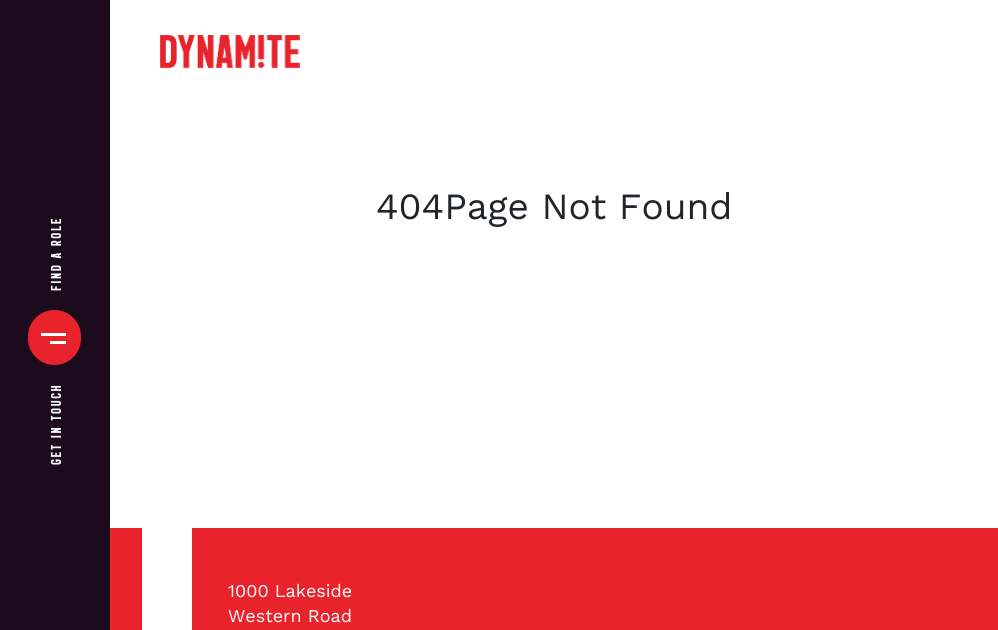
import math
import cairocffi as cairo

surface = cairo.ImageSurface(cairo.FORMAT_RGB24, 998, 630)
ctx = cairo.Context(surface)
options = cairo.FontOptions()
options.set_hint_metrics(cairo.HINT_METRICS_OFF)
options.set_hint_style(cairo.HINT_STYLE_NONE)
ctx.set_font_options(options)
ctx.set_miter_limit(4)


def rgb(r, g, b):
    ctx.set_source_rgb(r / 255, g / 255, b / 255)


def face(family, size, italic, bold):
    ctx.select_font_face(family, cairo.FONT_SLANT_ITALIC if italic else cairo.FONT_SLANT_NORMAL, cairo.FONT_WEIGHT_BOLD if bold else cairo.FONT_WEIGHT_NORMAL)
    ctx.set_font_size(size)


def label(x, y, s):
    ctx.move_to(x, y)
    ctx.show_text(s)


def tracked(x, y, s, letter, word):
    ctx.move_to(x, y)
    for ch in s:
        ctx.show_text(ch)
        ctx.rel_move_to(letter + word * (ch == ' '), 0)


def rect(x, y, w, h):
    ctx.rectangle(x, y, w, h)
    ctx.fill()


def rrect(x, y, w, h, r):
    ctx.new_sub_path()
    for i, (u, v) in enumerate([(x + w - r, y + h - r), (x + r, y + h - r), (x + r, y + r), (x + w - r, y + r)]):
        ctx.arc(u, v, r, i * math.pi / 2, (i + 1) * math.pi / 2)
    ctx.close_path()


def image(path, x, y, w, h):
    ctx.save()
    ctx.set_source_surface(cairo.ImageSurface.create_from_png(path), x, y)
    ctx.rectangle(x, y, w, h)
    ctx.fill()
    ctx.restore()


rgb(255, 255, 255)
ctx.paint()
face('Work Sans', 37, 0, 0)
rgb(33, 37, 41)
label(376, 219, '404Page Not Found')
image('image0.png', 160, 35, 140, 34)
rgb(28, 10, 29)
rect(0, 0, 110, 630)
face('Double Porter', 16, 0, 0)
rgb(255, 255, 255)
ctx.save()
ctx.translate(61, 291)
ctx.rotate(-90 * math.pi / 180)
tracked(0, 0, 'FIND A ROLE', 1.6, 0)
ctx.restore()
rgb(232, 35, 43)
rrect(28, 310, 53, 55, 26.5)
ctx.fill()
rgb(255, 255, 255)
rect(41, 333, 25, 3)
rect(50, 341, 16, 3)
ctx.save()
ctx.translate(61, 465)
ctx.rotate(-90 * math.pi / 180)
tracked(0, 0, 'GET IN TOUCH', 1.6, 0)
ctx.restore()
rgb(232, 35, 43)
rect(110, 528, 888, 102)
rgb(255, 255, 255)
rect(142, 528, 50, 102)
face('Work Sans', 18, 0, 0)
label(228, 597, '1000 Lakeside')
label(228, 622, 'Western Road')
surface.write_to_png('render.png')
